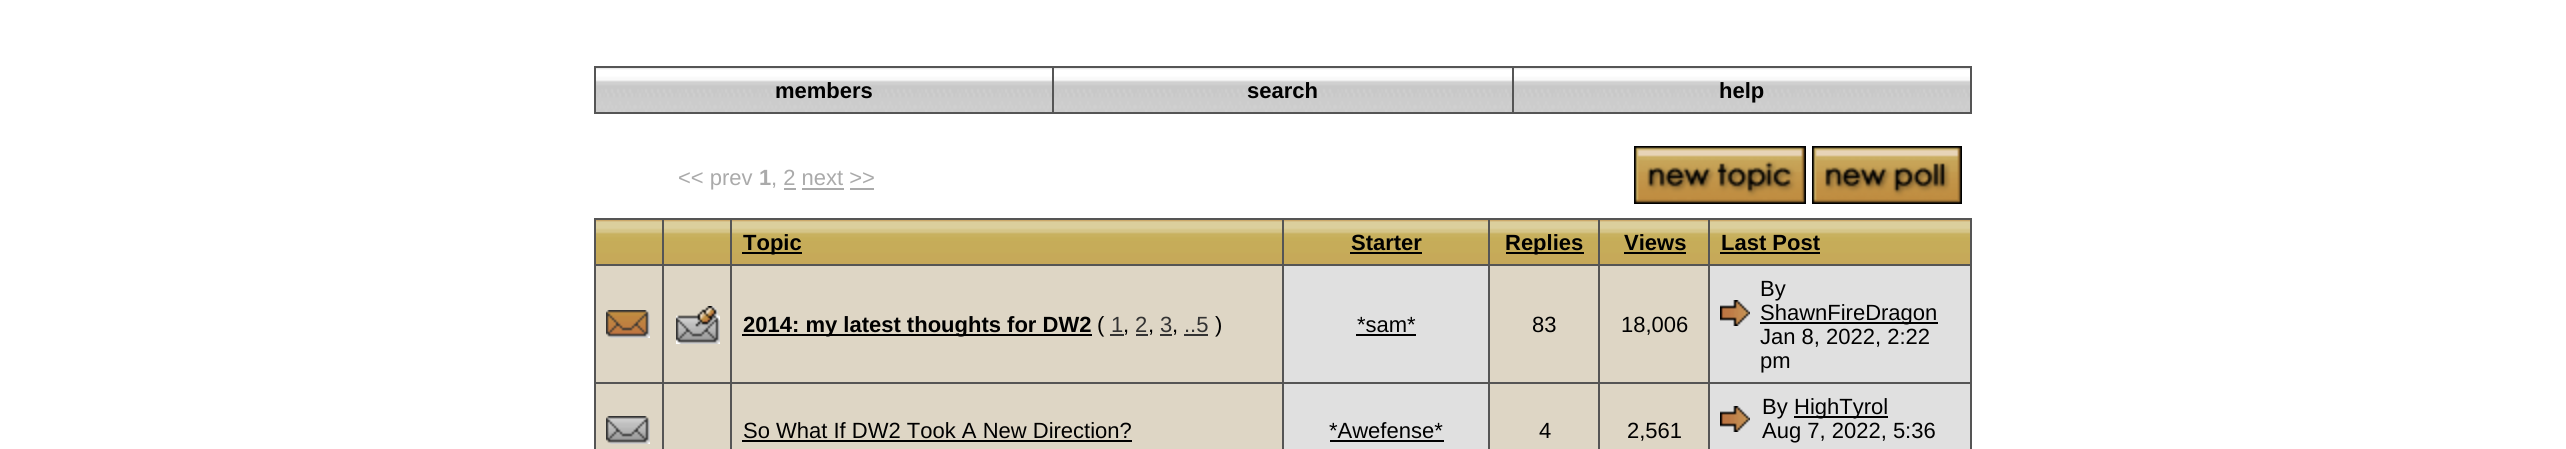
import math
import cairocffi as cairo

surface = cairo.ImageSurface(cairo.FORMAT_RGB24, 2566, 449)
ctx = cairo.Context(surface)
options = cairo.FontOptions()
options.set_hint_metrics(cairo.HINT_METRICS_OFF)
options.set_hint_style(cairo.HINT_STYLE_NONE)
ctx.set_font_options(options)
ctx.set_miter_limit(4)


def rgb(r, g, b):
    ctx.set_source_rgb(r / 255, g / 255, b / 255)


def face(family, size, italic, bold):
    ctx.select_font_face(family, cairo.FONT_SLANT_ITALIC if italic else cairo.FONT_SLANT_NORMAL, cairo.FONT_WEIGHT_BOLD if bold else cairo.FONT_WEIGHT_NORMAL)
    ctx.set_font_size(size)


def label(x, y, s):
    ctx.move_to(x, y)
    ctx.show_text(s)


def rect(x, y, w, h):
    ctx.rectangle(x, y, w, h)
    ctx.fill()


def image(path, x, y, w, h):
    ctx.save()
    ctx.set_source_surface(cairo.ImageSurface.create_from_png(path), x, y)
    ctx.rectangle(x, y, w, h)
    ctx.fill()
    ctx.restore()


rgb(255, 255, 255)
ctx.paint()
image('image0.png', 596, 68, 456, 44)
rgb(85, 85, 85)
rect(1512, 66, 460, 2)
rect(1970, 66, 2, 48)
rect(1512, 112, 460, 2)
rect(1512, 66, 2, 48)
rect(1052, 66, 462, 2)
rect(1052, 112, 462, 2)
rect(1052, 66, 2, 48)
rect(594, 66, 460, 2)
rect(594, 112, 460, 2)
rect(594, 66, 2, 48)
face('Liberation Sans', 22, 0, 1)
rgb(0, 0, 0)
label(775, 98, 'members')
image('image1.png', 1054, 68, 458, 44)
label(1247, 98, 'search')
image('image2.png', 1514, 68, 456, 44)
label(1719, 98, 'help')
face('Liberation Sans', 22, 0, 0)
rgb(170, 170, 170)
label(678, 185, '<< prev')
face('Liberation Sans', 22, 0, 1)
label(759, 185, '1')
face('Liberation Sans', 22, 0, 0)
label(771, 185, ', 2 next >>')
rect(784, 188, 12, 2)
rect(802, 188, 42, 2)
rect(850, 188, 24, 2)
image('image3.png', 1634, 146, 172, 58)
image('image4.png', 1812, 146, 150, 58)
image('image5.png', 596, 220, 66, 44)
rgb(85, 85, 85)
rect(1708, 218, 264, 2)
rect(1708, 264, 264, 2)
rect(1708, 382, 264, 2)
rect(1708, 382, 2, 67)
rect(1598, 382, 112, 2)
rect(1708, 264, 2, 120)
rect(1598, 264, 112, 2)
rect(1708, 218, 2, 48)
rect(1598, 218, 112, 2)
rect(1598, 382, 2, 67)
rect(1488, 382, 112, 2)
rect(1598, 264, 2, 120)
rect(1488, 264, 112, 2)
rect(1598, 218, 2, 48)
rect(1488, 218, 112, 2)
rect(1488, 382, 2, 67)
rect(1282, 382, 208, 2)
rect(1488, 264, 2, 120)
rect(1282, 264, 208, 2)
rect(1488, 218, 2, 48)
rect(1282, 218, 208, 2)
rect(1282, 382, 2, 67)
rect(730, 382, 554, 2)
rect(1282, 264, 2, 120)
rect(730, 264, 554, 2)
rect(1282, 218, 2, 48)
rect(730, 218, 554, 2)
rect(730, 382, 2, 67)
rect(662, 382, 70, 2)
rect(730, 264, 2, 120)
rect(662, 264, 70, 2)
rect(730, 218, 2, 48)
rect(662, 218, 70, 2)
rect(662, 382, 2, 67)
rect(594, 382, 70, 2)
rect(662, 264, 2, 120)
rect(594, 264, 70, 2)
rect(662, 218, 2, 48)
rect(594, 218, 70, 2)
rect(594, 382, 2, 67)
rect(594, 264, 2, 120)
rect(594, 218, 2, 48)
image('image5.png', 664, 220, 66, 44)
image('image6.png', 732, 220, 550, 44)
rgb(0, 0, 0)
rect(742, 252, 60, 2)
face('Liberation Sans', 22, 0, 1)
label(743, 250, 'Topic')
image('image7.png', 1284, 220, 204, 44)
label(1351, 250, 'Starter')
rect(1350, 252, 72, 2)
image('image8.png', 1490, 220, 108, 44)
rect(1506, 252, 78, 2)
label(1505, 250, 'Replies')
image('image8.png', 1600, 220, 108, 44)
label(1624, 250, 'Views')
rect(1624, 252, 62, 2)
image('image9.png', 1710, 220, 260, 44)
rgb(85, 85, 85)
rect(1970, 382, 2, 67)
rect(1970, 264, 2, 120)
rect(1970, 218, 2, 48)
rgb(0, 0, 0)
label(1721, 250, 'Last Post')
rect(1720, 252, 100, 2)
rgb(222, 214, 197)
rect(596, 266, 66, 116)
image('image10.png', 606, 310, 44, 28)
rect(664, 266, 66, 116)
image('image11.png', 676, 306, 44, 38)
rect(732, 266, 550, 116)
rgb(0, 0, 0)
rect(742, 334, 350, 2)
label(743, 332, '2014: my latest thoughts for DW2')
face('Liberation Sans', 22, 0, 0)
label(1097, 332, '(')
rgb(51, 51, 51)
label(1111, 332, '1')
rect(1110, 334, 14, 2)
rgb(0, 0, 0)
label(1123, 332, ',')
rgb(51, 51, 51)
label(1135, 332, '2')
rect(1136, 334, 12, 2)
rgb(0, 0, 0)
label(1148, 332, ',')
rgb(51, 51, 51)
label(1160, 332, '3')
rect(1160, 334, 12, 2)
rgb(0, 0, 0)
label(1172, 332, ',')
rgb(51, 51, 51)
label(1184, 332, '..5')
rect(1184, 334, 24, 2)
rgb(0, 0, 0)
label(1215, 332, ')')
rgb(224, 224, 224)
rect(1284, 266, 204, 116)
rgb(0, 0, 0)
label(1357, 332, '*sam*')
rect(1356, 334, 60, 2)
rgb(222, 214, 197)
rect(1490, 266, 108, 116)
rgb(0, 0, 0)
label(1532, 332, '83')
rgb(222, 214, 197)
rect(1600, 266, 108, 116)
rgb(0, 0, 0)
label(1621, 332, '18,006')
rgb(224, 224, 224)
rect(1710, 266, 260, 116)
image('image12.png', 1720, 300, 30, 26)
rgb(0, 0, 0)
label(1760, 296, 'By')
rect(1760, 322, 178, 2)
label(1760, 320, 'ShawnFireDragon')
label(1760, 344, 'Jan 8, 2022, 2:22')
label(1760, 368, 'pm')
rgb(222, 214, 197)
rect(596, 384, 66, 65)
image('image13.png', 606, 416, 44, 28)
rect(664, 384, 66, 65)
rect(732, 384, 550, 65)
rgb(0, 0, 0)
label(743, 438, 'So What If DW2 Took A New Direction?')
rect(742, 440, 390, 2)
rgb(224, 224, 224)
rect(1284, 384, 204, 65)
rgb(0, 0, 0)
label(1329, 438, '*Awefense*')
rect(1330, 440, 114, 2)
rgb(222, 214, 197)
rect(1490, 384, 108, 65)
rgb(0, 0, 0)
label(1539, 438, '4')
rgb(222, 214, 197)
rect(1600, 384, 108, 65)
rgb(0, 0, 0)
label(1627, 438, '2,561')
rgb(224, 224, 224)
rect(1710, 384, 260, 65)
image('image12.png', 1720, 406, 30, 26)
rgb(0, 0, 0)
label(1762, 414, 'By')
rect(1794, 416, 94, 2)
label(1794, 414, 'HighTyrol')
label(1762, 438, 'Aug 7, 2022, 5:36')
surface.write_to_png('render.png')
